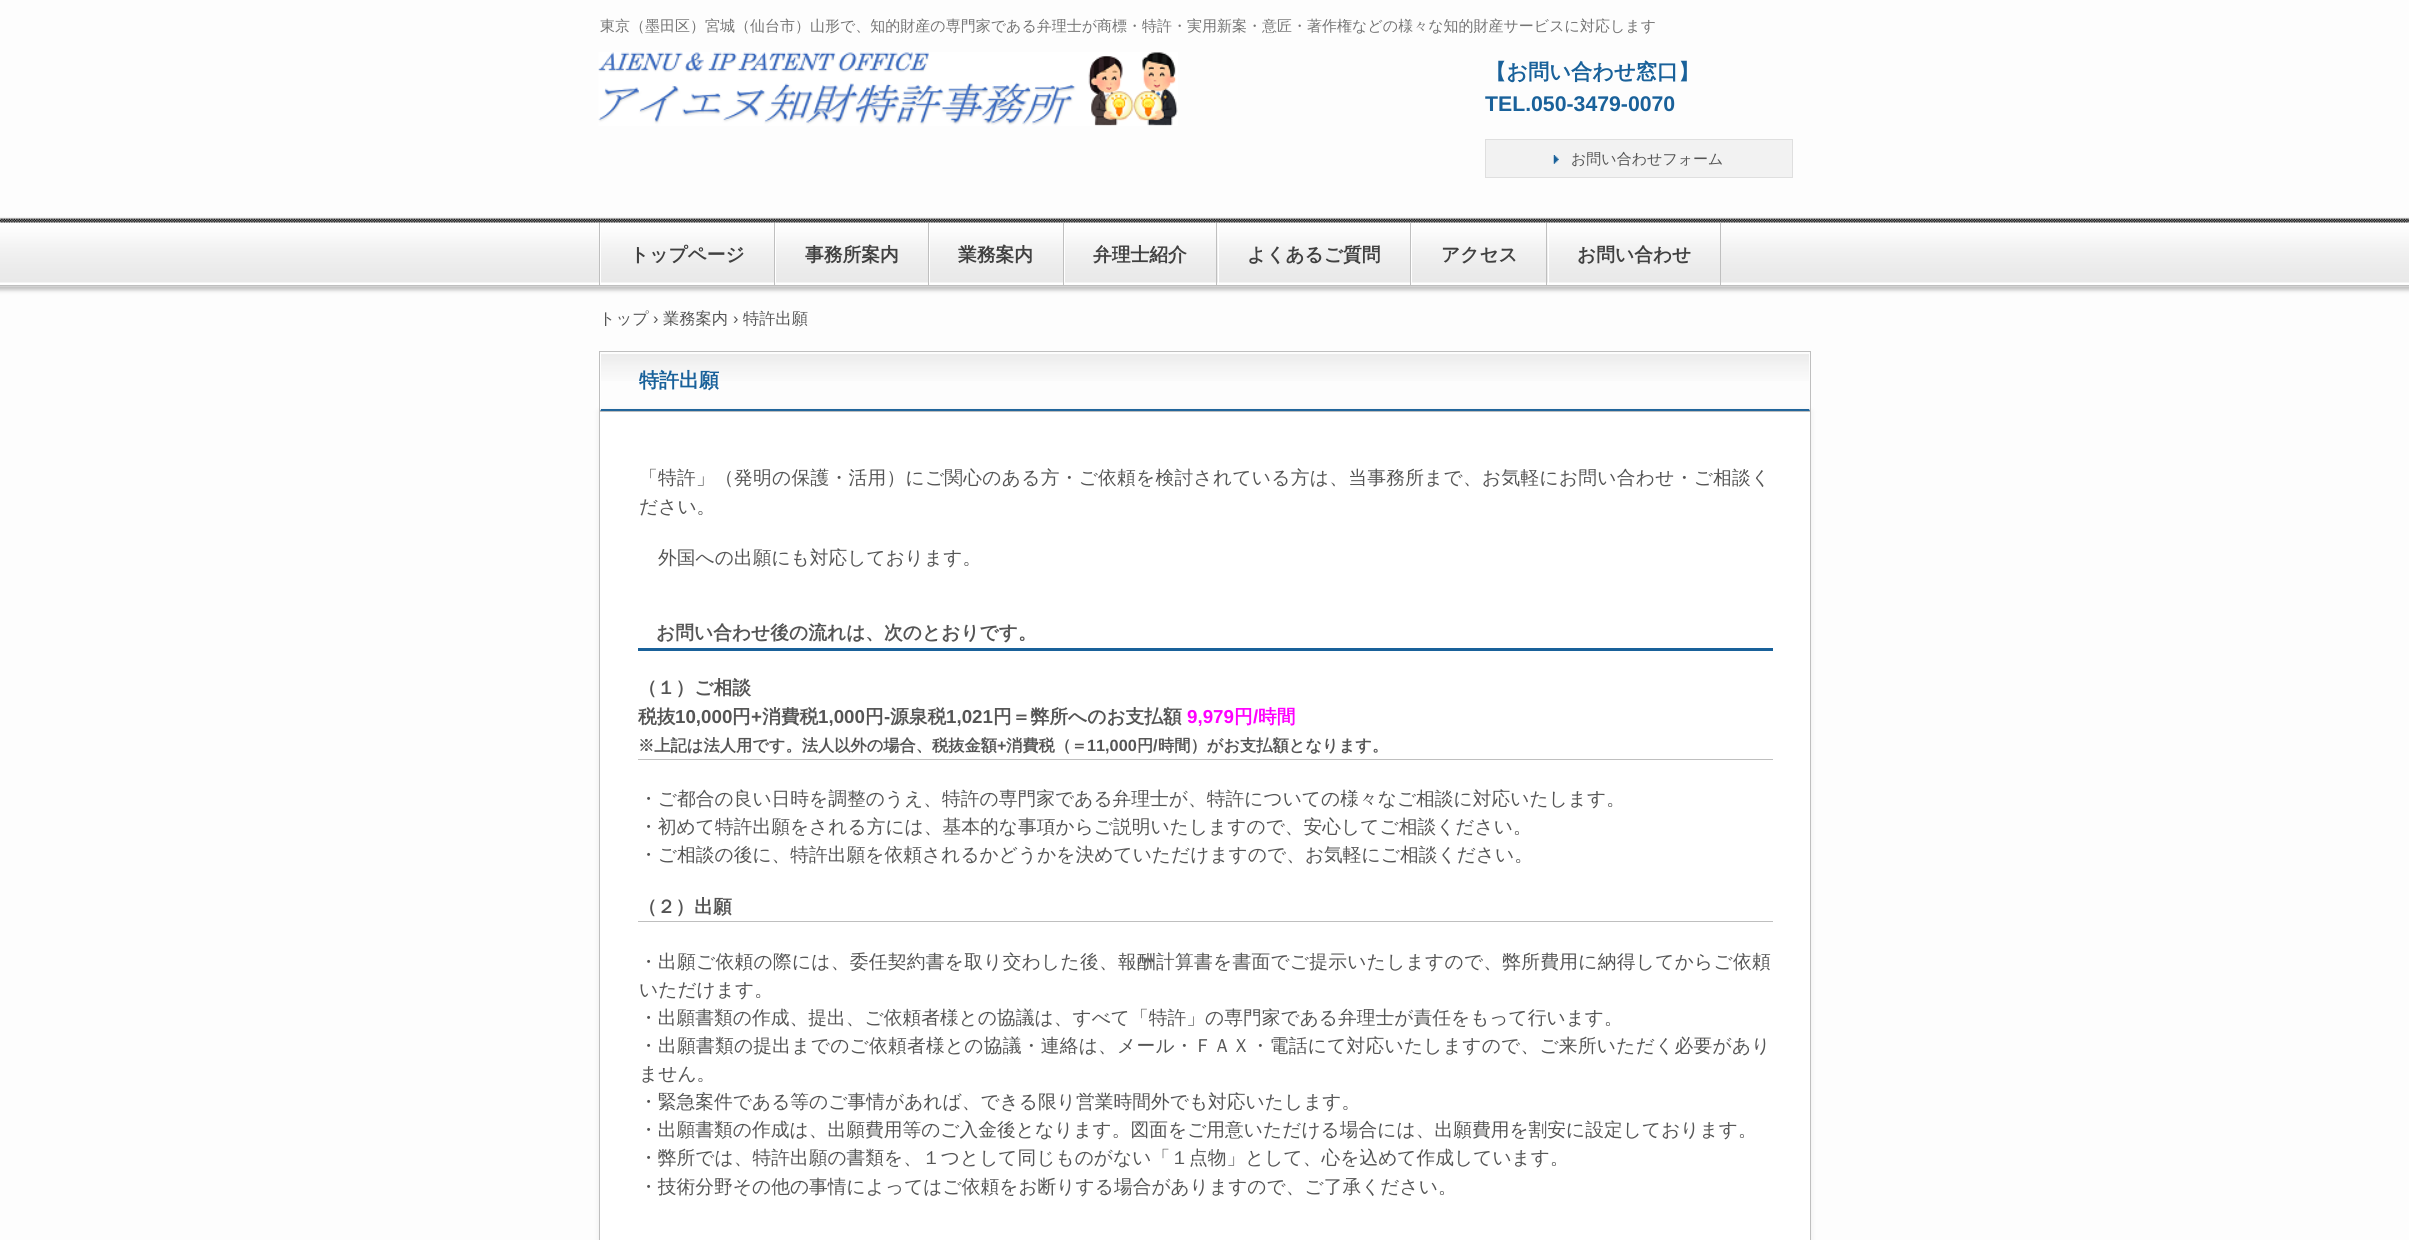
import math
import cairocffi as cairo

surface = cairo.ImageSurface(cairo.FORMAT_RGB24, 2409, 1240)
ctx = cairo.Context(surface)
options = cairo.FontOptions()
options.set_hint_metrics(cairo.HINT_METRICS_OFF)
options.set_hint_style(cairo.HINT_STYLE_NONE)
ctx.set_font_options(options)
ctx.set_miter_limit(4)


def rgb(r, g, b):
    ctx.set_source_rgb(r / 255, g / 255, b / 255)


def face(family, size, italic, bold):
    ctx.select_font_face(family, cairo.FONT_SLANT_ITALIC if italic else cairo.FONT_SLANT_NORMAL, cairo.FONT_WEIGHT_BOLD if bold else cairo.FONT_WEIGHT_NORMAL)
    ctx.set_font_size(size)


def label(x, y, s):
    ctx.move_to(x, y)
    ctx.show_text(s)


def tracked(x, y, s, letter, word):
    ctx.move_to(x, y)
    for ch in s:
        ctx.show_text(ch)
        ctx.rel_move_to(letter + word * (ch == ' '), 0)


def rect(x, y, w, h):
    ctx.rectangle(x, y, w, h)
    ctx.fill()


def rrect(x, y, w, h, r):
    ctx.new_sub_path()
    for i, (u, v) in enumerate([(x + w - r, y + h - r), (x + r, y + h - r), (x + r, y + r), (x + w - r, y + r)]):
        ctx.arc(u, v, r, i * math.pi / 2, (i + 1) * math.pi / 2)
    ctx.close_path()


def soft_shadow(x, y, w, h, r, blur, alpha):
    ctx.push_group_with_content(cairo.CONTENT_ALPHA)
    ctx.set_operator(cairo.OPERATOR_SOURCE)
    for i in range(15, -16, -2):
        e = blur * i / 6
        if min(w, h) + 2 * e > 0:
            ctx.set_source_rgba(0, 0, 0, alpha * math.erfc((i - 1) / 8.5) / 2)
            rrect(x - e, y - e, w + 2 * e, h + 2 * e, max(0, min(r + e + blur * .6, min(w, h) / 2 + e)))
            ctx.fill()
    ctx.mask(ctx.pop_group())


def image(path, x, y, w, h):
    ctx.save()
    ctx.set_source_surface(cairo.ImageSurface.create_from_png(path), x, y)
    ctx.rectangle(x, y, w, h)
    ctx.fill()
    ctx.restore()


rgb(253, 253, 253)
ctx.paint()
face('WenQuanYi Zen Hei Medium', 15, 0, 0)
rgb(116, 116, 116)
label(600, 31, '東京（墨田区）宮城（仙台市）山形で、知的財産の専門家である弁理士が商標・特許・実用新案・意匠・著作権などの様々な知的財産サービスに対応します')
image('image0.png', 598, 52, 580, 74)
face('WenQuanYi Zen Hei', 21.25, 0, 1)
rgb(25, 97, 154)
label(1485, 79, '【お問い合わせ窓口】')
face('Liberation Sans', 21.25, 0, 1)
label(1485, 111, 'TEL.050-3479-0070')
rgb(242, 242, 242)
ctx.rectangle(1485.5, 139.5, 307, 38)
ctx.fill_preserve()
rgb(223, 223, 223)
ctx.set_line_width(1)
ctx.stroke()
image('image1.png', 1553, 155, 6, 9)
face('WenQuanYi Zen Hei Medium', 15, 0, 0)
rgb(85, 85, 85)
label(1571, 164, 'お問い合わせフォーム')
rgb(191, 191, 191)
soft_shadow(-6, 221, 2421, 69, 0, 2, 1)
image('image2.png', 0, 217, 2409, 70)
rgb(191, 191, 191)
rect(0, 218, 2409, 1)
rect(0, 285, 2409, 1)
image('image3.png', 0, 218, 2409, 5)
rect(599, 223, 1, 62)
rect(774, 223, 1, 62)
rgb(255, 255, 255)
rect(600, 223, 1, 62)
face('WenQuanYi Zen Hei', 18.75, 0, 1)
rgb(64, 64, 64)
label(630, 261, 'トップページ')
rgb(191, 191, 191)
rect(928, 223, 1, 62)
rgb(255, 255, 255)
rect(775, 223, 1, 62)
rgb(64, 64, 64)
label(805, 261, '事務所案内')
rgb(191, 191, 191)
rect(1063, 223, 1, 62)
rgb(255, 255, 255)
rect(929, 223, 1, 62)
rgb(64, 64, 64)
label(958, 261, '業務案内')
rgb(191, 191, 191)
rect(1216, 223, 1, 62)
rgb(255, 255, 255)
rect(1064, 223, 1, 62)
rgb(64, 64, 64)
label(1093, 261, '弁理士紹介')
rgb(191, 191, 191)
rect(1410, 223, 1, 62)
rgb(255, 255, 255)
rect(1218, 223, 1, 62)
rgb(64, 64, 64)
label(1247, 261, 'よくあるご質問')
rgb(191, 191, 191)
rect(1546, 223, 1, 62)
rgb(255, 255, 255)
rect(1411, 223, 1, 62)
rgb(64, 64, 64)
label(1441, 261, 'アクセス')
rgb(191, 191, 191)
rect(1720, 223, 1, 62)
rgb(255, 255, 255)
rect(1548, 223, 1, 62)
rgb(64, 64, 64)
label(1577, 261, 'お問い合わせ')
face('WenQuanYi Zen Hei Medium', 16.25, 0, 0)
rgb(85, 85, 85)
label(599, 324, 'トップ')
face('Liberation Sans', 16.25, 0, 0)
label(653, 324, '›')
face('WenQuanYi Zen Hei Medium', 16.25, 0, 0)
label(663, 324, '業務案内')
face('Liberation Sans', 16.25, 0, 0)
label(733, 324, '›')
face('WenQuanYi Zen Hei Medium', 16.25, 0, 0)
label(743, 324, '特許出願')
rgb(191, 191, 191)
rect(599, 351, 1212, 1)
rect(1810, 351, 1, 60)
rect(599, 351, 1, 60)
image('image4.png', 601, 354, 1208, 27)
rgb(25, 97, 154)
ctx.new_path()
ctx.move_to(1810, 411)
ctx.line_to(600, 411)
ctx.line_to(601, 409)
ctx.line_to(1809, 409)
ctx.close_path()
ctx.fill()
rgb(255, 255, 255)
ctx.new_path()
ctx.move_to(600, 411)
ctx.line_to(600, 352)
ctx.line_to(601, 354)
ctx.line_to(601, 409)
ctx.close_path()
ctx.fill()
face('WenQuanYi Zen Hei', 20, 0, 1)
rgb(25, 97, 154)
label(639, 387, '特許出願')
rgb(162, 162, 162)
soft_shadow(599, 411, 1212, 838, 0, 3, 0.2)
rgb(255, 255, 255)
ctx.rectangle(599.5, 411.5, 1211, 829)
ctx.fill_preserve()
rgb(191, 191, 191)
ctx.stroke()
face('WenQuanYi Zen Hei Medium', 18.75, 0, 0)
rgb(85, 85, 85)
tracked(639, 484, '「特許」（発明の保護・活用）にご関心のある方・ご依頼を検討されている方は、当事務所まで、お気軽にお問い合わせ・ご相談く', 0.25, 0)
label(639, 513, 'ださい。')
label(658, 564, '外国への出願にも対応しております。')
rgb(25, 97, 154)
rect(638, 648, 1135, 3)
face('WenQuanYi Zen Hei', 18.75, 0, 1)
rgb(85, 85, 85)
label(656, 639, 'お問い合わせ後の流れは、次のとおりです。')
rgb(191, 191, 191)
rect(638, 759, 1135, 1)
rgb(85, 85, 85)
label(638, 694, '（１）ご相談')
label(638, 723, '税抜')
face('Liberation Sans', 18.75, 0, 1)
label(675, 723, '10,000')
face('WenQuanYi Zen Hei', 18.75, 0, 1)
label(732, 723, '円')
face('Liberation Sans', 18.75, 0, 1)
label(751, 723, '+')
face('WenQuanYi Zen Hei', 18.75, 0, 1)
label(762, 723, '消費税')
face('Liberation Sans', 18.75, 0, 1)
label(818, 723, '1,000')
face('WenQuanYi Zen Hei', 18.75, 0, 1)
label(865, 723, '円')
face('Liberation Sans', 18.75, 0, 1)
label(884, 723, '-')
face('WenQuanYi Zen Hei', 18.75, 0, 1)
label(890, 723, '源泉税')
face('Liberation Sans', 18.75, 0, 1)
label(946, 723, '1,021')
face('WenQuanYi Zen Hei', 18.75, 0, 1)
label(993, 723, '円＝弊所へのお支払額')
face('Liberation Sans', 18.75, 0, 1)
rgb(255, 0, 255)
label(1187, 723, '9,979')
face('WenQuanYi Zen Hei', 18.75, 0, 1)
label(1234, 723, '円')
face('Liberation Sans', 18.75, 0, 1)
label(1253, 723, '/')
face('WenQuanYi Zen Hei', 18.75, 0, 1)
label(1258, 723, '時間')
face('WenQuanYi Zen Hei', 16.25, 0, 1)
rgb(85, 85, 85)
label(638, 751, '※上記は法人用です。法人以外の場合、税抜金額')
face('Liberation Sans', 16.25, 0, 1)
label(997, 751, '+')
face('WenQuanYi Zen Hei', 16.25, 0, 1)
label(1006, 751, '消費税（＝')
face('Liberation Sans', 16.25, 0, 1)
label(1087, 751, '11,000')
face('WenQuanYi Zen Hei', 16.25, 0, 1)
label(1137, 751, '円')
face('Liberation Sans', 16.25, 0, 1)
label(1153, 751, '/')
face('WenQuanYi Zen Hei', 16.25, 0, 1)
label(1158, 751, '時間）がお支払額となります。')
face('WenQuanYi Zen Hei Medium', 18.75, 0, 0)
label(639, 805, '・ご都合の良い日時を調整のうえ、特許の専門家である弁理士が、特許についての様々なご相談に対応いたします。')
label(639, 833, '・初めて特許出願をされる方には、基本的な事項からご説明いたしますので、安心してご相談ください。')
label(639, 861, '・ご相談の後に、特許出願を依頼されるかどうかを決めていただけますので、お気軽にご相談ください。')
rgb(191, 191, 191)
rect(638, 921, 1135, 1)
face('WenQuanYi Zen Hei', 18.75, 0, 1)
rgb(85, 85, 85)
label(638, 913, '（２）出願')
face('WenQuanYi Zen Hei Medium', 18.75, 0, 0)
tracked(639, 968, '・出願ご依頼の際には、委任契約書を取り交わした後、報酬計算書を書面でご提示いたしますので、弊所費用に納得してからご依頼', 0.25, 0)
label(639, 996, 'いただけます。')
label(639, 1024, '・出願書類の作成、提出、ご依頼者様との協議は、すべて「特許」の専門家である弁理士が責任をもって行います。')
tracked(639, 1052, '・出願書類の提出までのご依頼者様との協議・連絡は、メール・ＦＡＸ・電話にて対応いたしますので、ご来所いただく必要があり', 0.23, 0)
label(639, 1080, 'ません。')
label(639, 1108, '・緊急案件である等のご事情があれば、できる限り営業時間外でも対応いたします。')
label(639, 1136, '・出願書類の作成は、出願費用等のご入金後となります。図面をご用意いただける場合には、出願費用を割安に設定しております。')
label(639, 1164, '・弊所では、特許出願の書類を、１つとして同じものがない「１点物」として、心を込めて作成しています。')
label(639, 1193, '・技術分野その他の事情によってはご依頼をお断りする場合がありますので、ご了承ください。')
surface.write_to_png('render.png')
